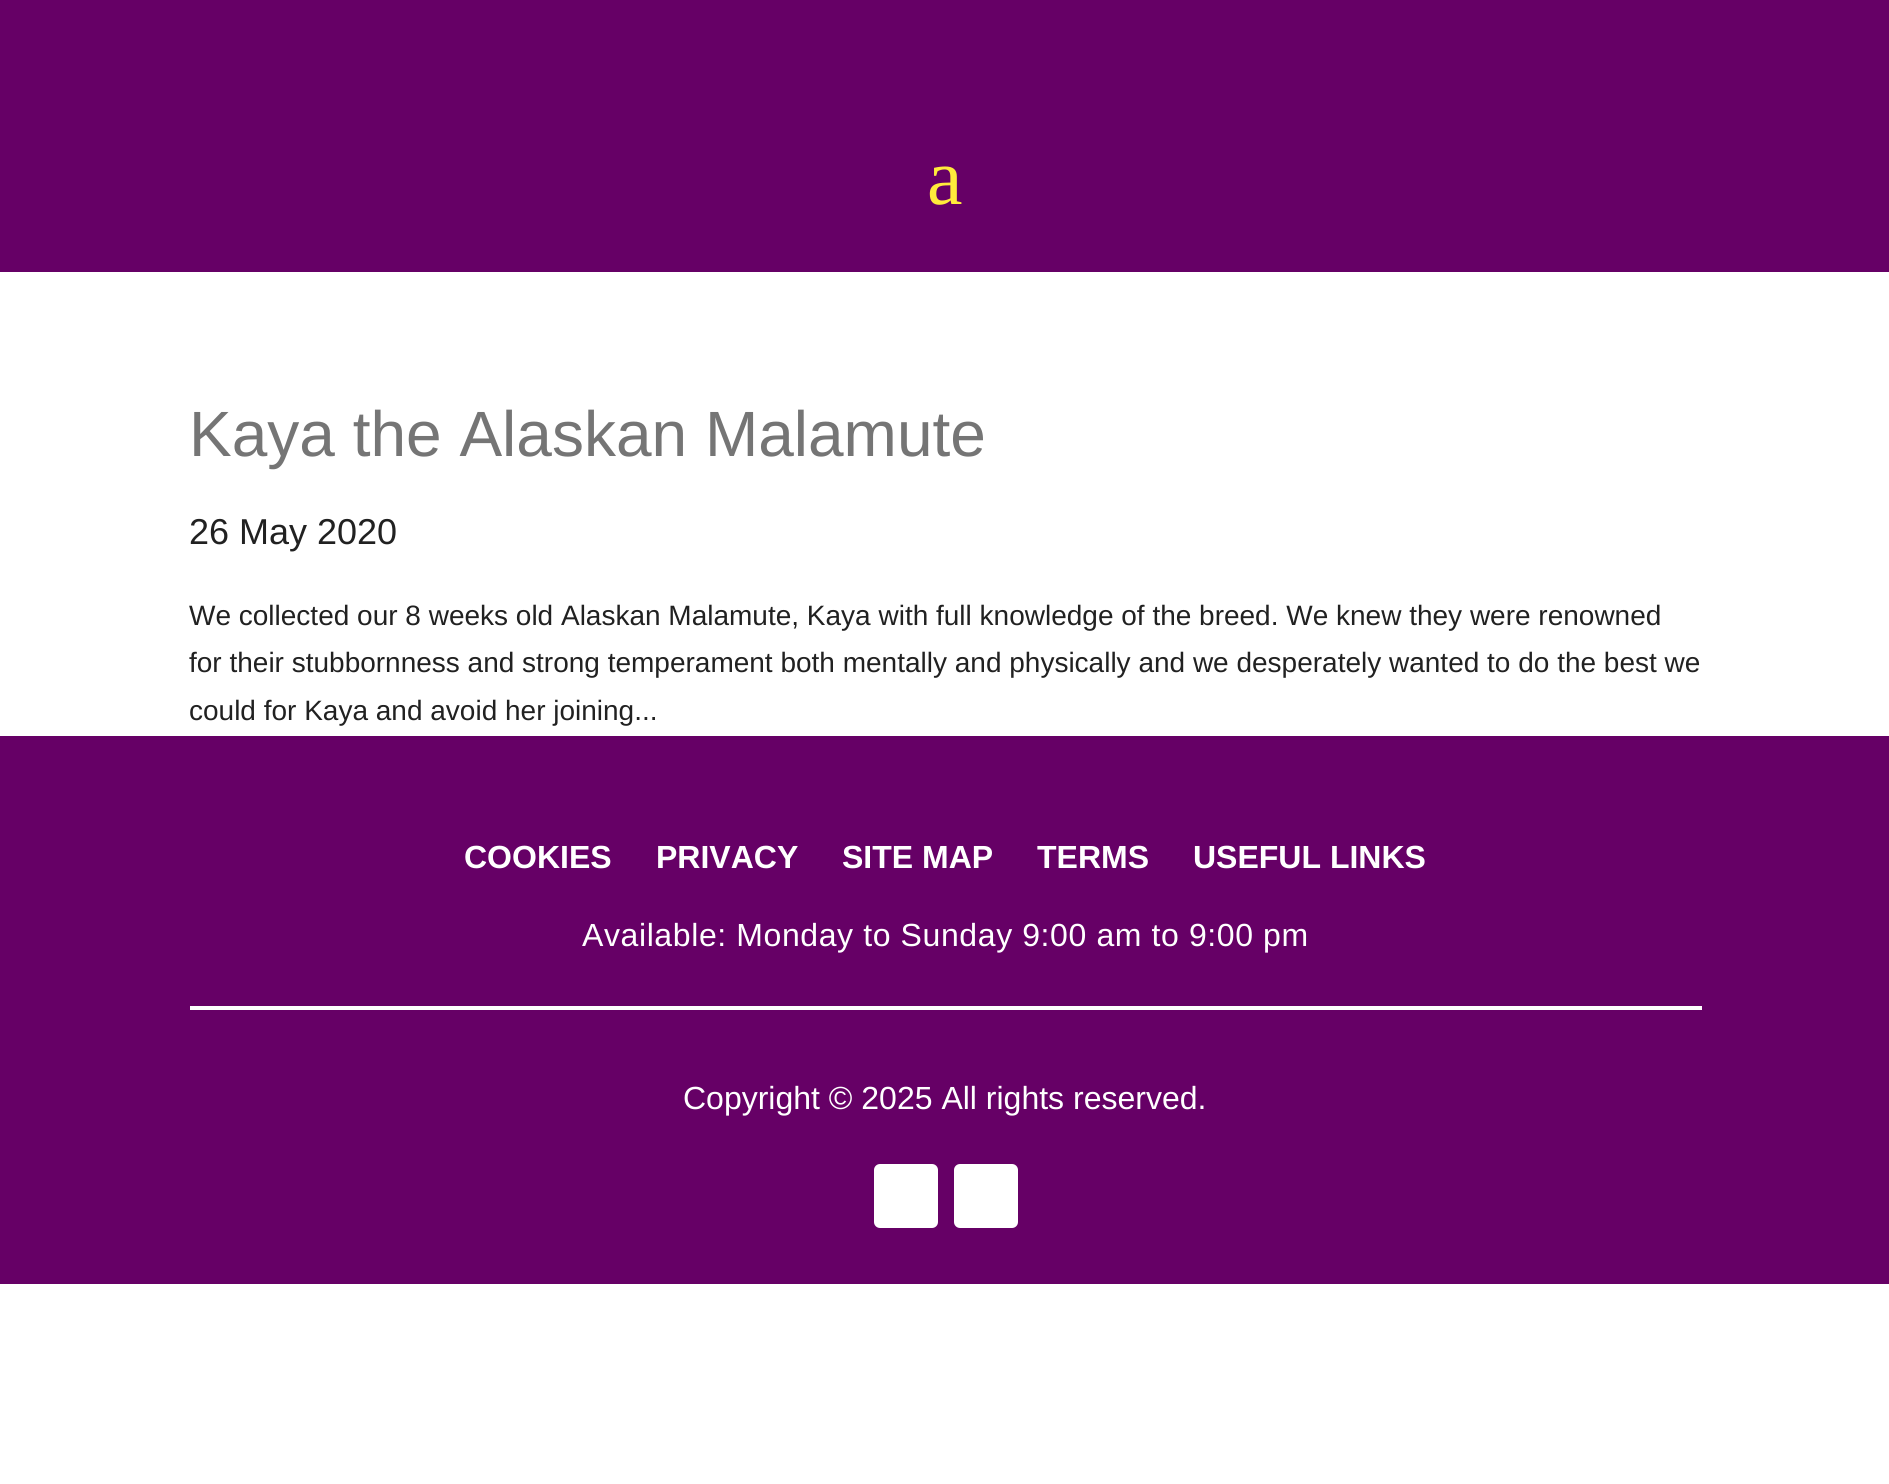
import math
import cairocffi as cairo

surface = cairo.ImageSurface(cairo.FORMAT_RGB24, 1889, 1484)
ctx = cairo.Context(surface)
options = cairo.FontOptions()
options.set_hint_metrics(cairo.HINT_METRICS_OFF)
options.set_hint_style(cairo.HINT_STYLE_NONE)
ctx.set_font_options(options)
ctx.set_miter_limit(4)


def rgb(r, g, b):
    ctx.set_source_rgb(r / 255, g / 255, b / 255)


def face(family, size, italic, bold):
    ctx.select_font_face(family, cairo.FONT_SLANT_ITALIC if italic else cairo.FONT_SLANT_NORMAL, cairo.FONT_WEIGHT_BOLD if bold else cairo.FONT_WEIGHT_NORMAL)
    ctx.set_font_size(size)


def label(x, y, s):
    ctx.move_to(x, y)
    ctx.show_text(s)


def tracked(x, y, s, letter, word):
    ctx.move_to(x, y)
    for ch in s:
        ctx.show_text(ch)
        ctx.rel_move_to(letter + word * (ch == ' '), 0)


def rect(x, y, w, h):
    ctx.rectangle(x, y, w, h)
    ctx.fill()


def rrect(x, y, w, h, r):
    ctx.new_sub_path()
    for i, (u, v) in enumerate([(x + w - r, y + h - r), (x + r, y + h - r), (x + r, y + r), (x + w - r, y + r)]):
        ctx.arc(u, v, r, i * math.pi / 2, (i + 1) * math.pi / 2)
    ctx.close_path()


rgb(255, 255, 255)
ctx.paint()
rgb(102, 0, 102)
rect(0, 0, 1889, 272)
face('Liberation Serif', 80, 0, 0)
rgb(255, 235, 59)
label(927, 204, 'a')
face('Liberation Sans', 64, 0, 0)
rgb(117, 117, 117)
label(189, 456, 'Kaya the Alaskan Malamute')
face('Liberation Sans', 36, 0, 0)
rgb(33, 33, 33)
label(189, 544, '26 May 2020')
face('Liberation Sans', 28, 0, 0)
label(189, 625, 'We collected our 8 weeks old Alaskan Malamute, Kaya with full knowledge of the breed. We knew they were renowned')
label(189, 672, 'for their stubbornness and strong temperament both mentally and physically and we desperately wanted to do the best we')
label(189, 720, 'could for Kaya and avoid her joining...')
rgb(102, 0, 102)
rect(0, 736, 1889, 548)
face('Liberation Sans', 32, 0, 1)
rgb(255, 255, 255)
label(464, 868, 'COOKIES')
label(656, 868, 'PRIVACY')
label(842, 868, 'SITE MAP')
label(1037, 868, 'TERMS')
label(1193, 868, 'USEFUL LINKS')
face('Liberation Sans', 32, 0, 0)
tracked(582, 946, 'Available: Monday to Sunday 9:00 am to 9:00 pm', 0.6, 0)
rect(190, 1006, 1512, 4)
label(683, 1109, 'Copyright © 2025 All rights reserved.')
rrect(874, 1164, 64, 64, 6)
ctx.fill()
rrect(954, 1164, 64, 64, 6)
ctx.fill()
surface.write_to_png('render.png')
